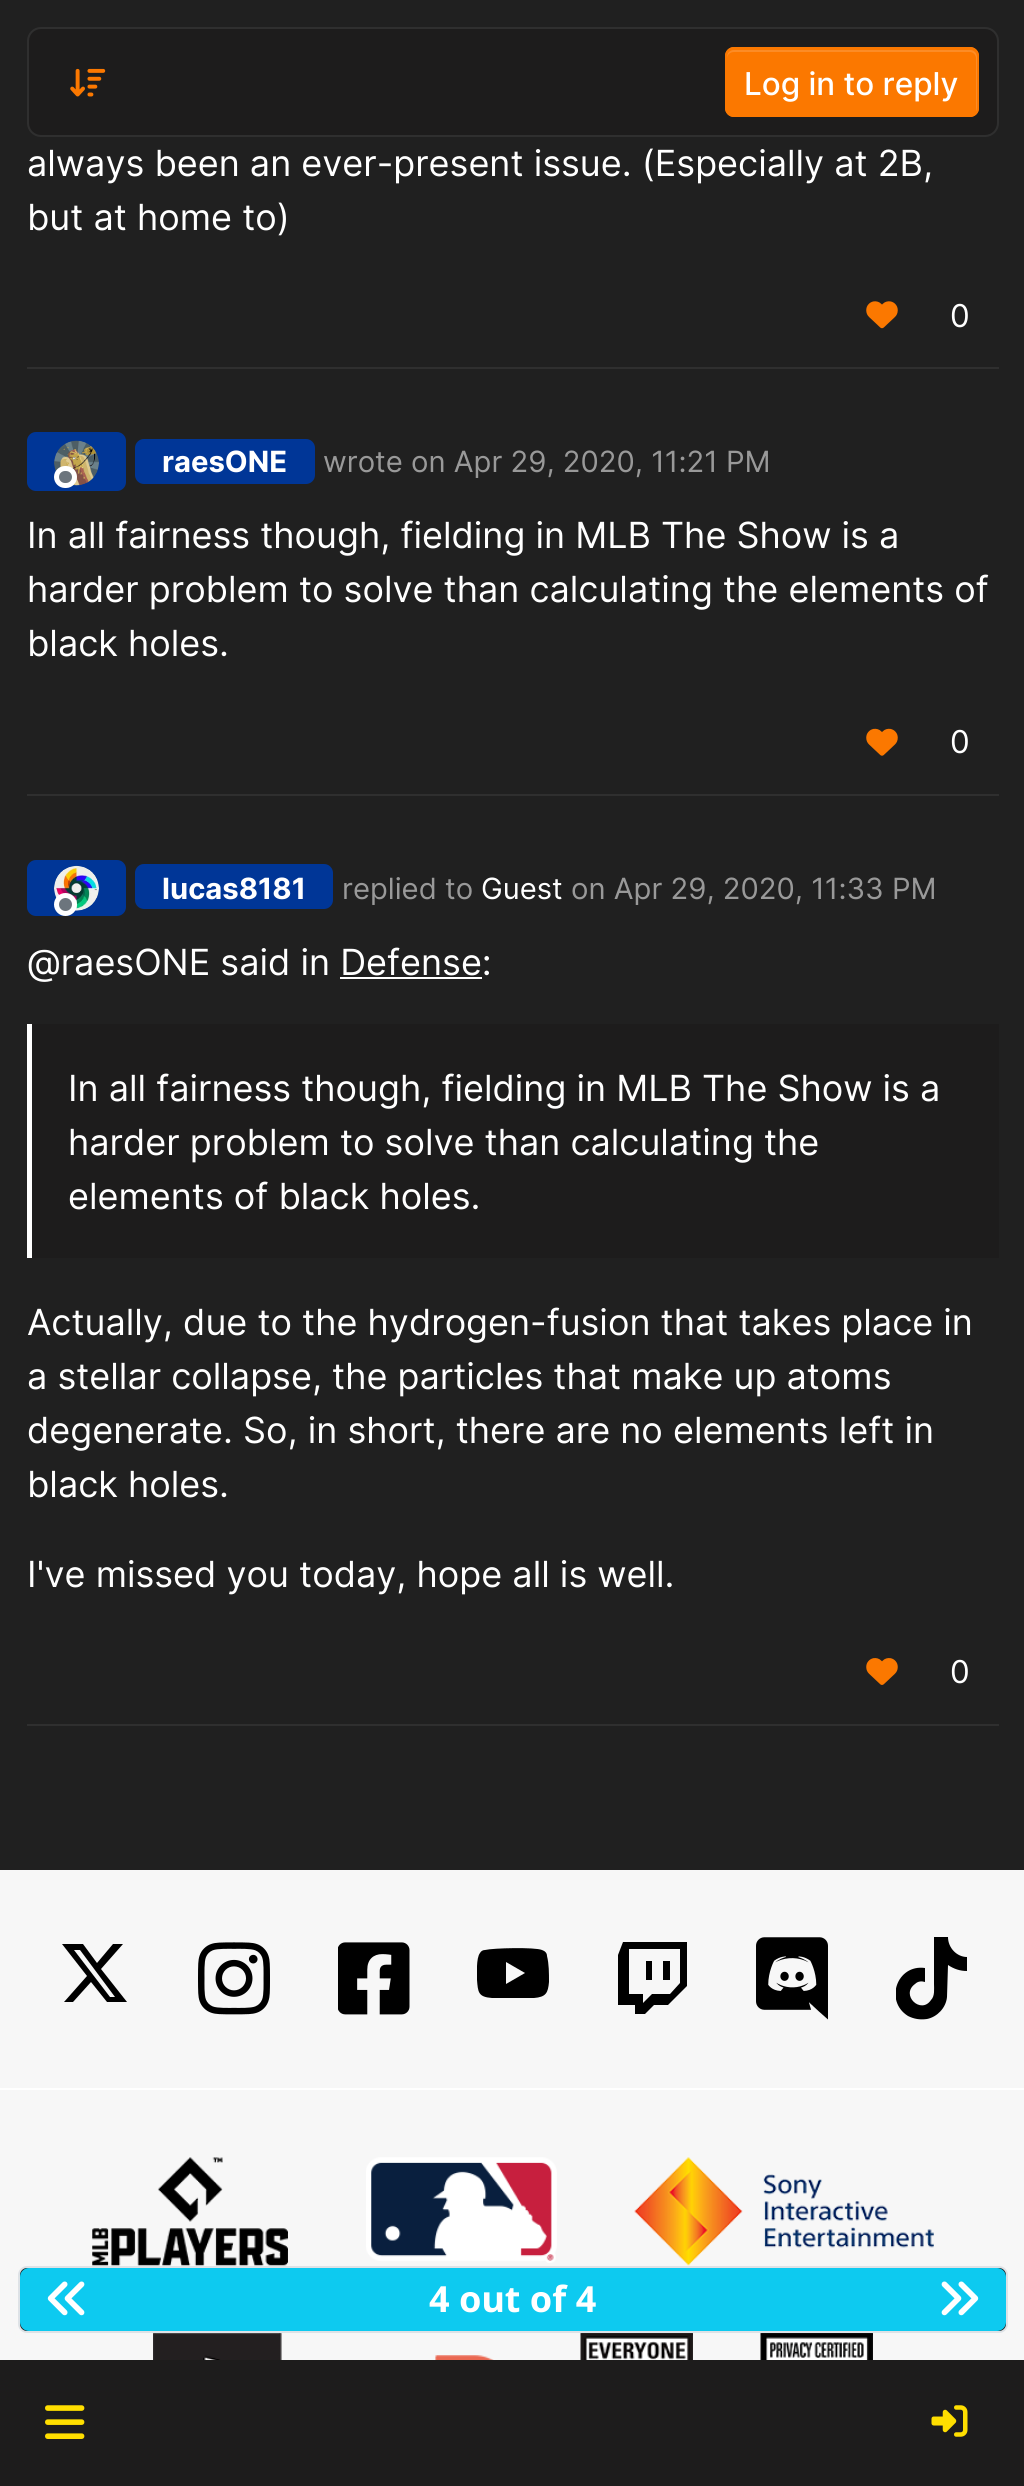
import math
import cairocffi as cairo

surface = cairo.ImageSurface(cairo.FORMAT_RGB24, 1024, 2486)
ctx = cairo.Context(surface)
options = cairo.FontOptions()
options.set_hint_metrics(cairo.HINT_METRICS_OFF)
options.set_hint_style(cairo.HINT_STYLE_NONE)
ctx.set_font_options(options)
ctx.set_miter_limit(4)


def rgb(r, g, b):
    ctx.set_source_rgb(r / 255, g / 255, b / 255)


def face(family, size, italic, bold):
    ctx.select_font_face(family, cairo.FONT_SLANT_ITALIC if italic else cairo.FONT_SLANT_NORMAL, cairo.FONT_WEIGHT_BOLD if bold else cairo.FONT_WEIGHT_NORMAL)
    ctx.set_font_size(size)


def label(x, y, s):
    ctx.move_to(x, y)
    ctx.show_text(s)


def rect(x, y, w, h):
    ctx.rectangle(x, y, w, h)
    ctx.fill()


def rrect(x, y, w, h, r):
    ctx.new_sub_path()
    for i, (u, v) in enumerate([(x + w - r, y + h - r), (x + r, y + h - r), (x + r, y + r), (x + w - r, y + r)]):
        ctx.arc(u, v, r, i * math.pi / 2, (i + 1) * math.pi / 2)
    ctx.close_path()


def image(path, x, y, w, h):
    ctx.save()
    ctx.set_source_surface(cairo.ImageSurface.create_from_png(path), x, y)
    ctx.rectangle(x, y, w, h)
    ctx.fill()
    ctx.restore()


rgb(32, 32, 32)
ctx.paint()
rgb(29, 28, 28)
rrect(28, 28, 970, 108, 13)
ctx.fill_preserve()
rgb(47, 47, 47)
ctx.stroke()
image('image0.png', 70, 68, 36, 29)
rgb(251, 120, 0)
rrect(725, 47, 254, 70, 9)
ctx.fill()
rgb(252, 140, 38)
ctx.new_path()
ctx.move_to(734, 52)
ctx.line_to(970, 52)
ctx.curve_to(973, 52, 976, 55, 976, 58)
ctx.line_to(976, 112)
ctx.curve_to(977, 111, 977, 109, 977, 108)
ctx.line_to(977, 57)
ctx.curve_to(977, 53, 974, 50, 970, 50)
ctx.line_to(734, 50)
ctx.curve_to(730, 50, 727, 53, 727, 57)
ctx.line_to(727, 58)
ctx.curve_to(727, 55, 730, 52, 734, 52)
ctx.close_path()
ctx.fill()
rrect(726, 48, 252, 68, 8)
rgb(251, 120, 0)
ctx.stroke()
face('Inter Medium', 31.5, 0, 0)
rgb(255, 255, 255)
label(744, 95, 'Log in to reply')
face('Inter', 36, 0, 0)
label(27, 176, 'always been an ever-present issue. (Especially at 2B,')
label(27, 230, 'but at home to)')
rgb(47, 47, 47)
rect(27, 367, 972, 2)
image('image1.png', 866, 301, 32, 28)
face('Inter', 31.5, 0, 0)
rgb(255, 255, 255)
label(950, 327, '0')
rgb(0, 54, 151)
rrect(27, 432, 99, 59, 9)
ctx.fill()
image('image2.png', 54, 440, 45, 46)
rgb(108, 117, 125)
rrect(56.5, 468.5, 18, 17, 8.5)
ctx.fill_preserve()
rgb(255, 255, 255)
ctx.set_line_width(5)
ctx.stroke()
rgb(0, 54, 151)
rrect(135, 439, 180, 45, 9)
ctx.fill()
face('Inter', 29.25, 0, 1)
rgb(255, 255, 255)
label(162, 472, 'raesONE')
face('Inter', 29.25, 0, 0)
rgb(153, 153, 153)
label(323, 472, 'wrote on Apr 29, 2020, 11:21 PM')
face('Inter', 36, 0, 0)
rgb(255, 255, 255)
label(27, 548, 'In all fairness though, fielding in MLB The Show is a')
label(27, 602, 'harder problem to solve than calculating the elements of')
label(27, 656, 'black holes.')
rgb(47, 47, 47)
rect(27, 794, 972, 2)
image('image3.png', 866, 728, 32, 28)
face('Inter', 31.5, 0, 0)
rgb(255, 255, 255)
label(950, 753, '0')
rgb(0, 54, 151)
rrect(27, 860, 99, 56, 9)
ctx.fill()
image('image4.png', 54, 865, 45, 46)
rgb(108, 117, 125)
ctx.arc(65.5, 904.5, 9, 0, 2 * math.pi)
ctx.fill_preserve()
rgb(255, 255, 255)
ctx.stroke()
rgb(0, 54, 151)
rrect(135, 864, 198, 45, 9)
ctx.fill()
face('Inter', 29.25, 0, 1)
rgb(255, 255, 255)
label(162, 899, 'lucas8181')
face('Inter', 29.25, 0, 0)
rgb(153, 153, 153)
label(342, 899, 'replied to')
rgb(255, 255, 255)
label(481, 899, 'Guest')
rgb(153, 153, 153)
label(571, 899, 'on Apr 29, 2020, 11:33 PM')
face('Inter', 36, 0, 0)
rgb(255, 255, 255)
label(27, 975, '@raesONE said in Defense:')
rect(340, 977, 142, 2)
rgb(29, 28, 28)
rect(32, 1024, 967, 234)
rgb(255, 255, 255)
rect(27, 1024, 5, 234)
label(68, 1101, 'In all fairness though, fielding in MLB The Show is a')
label(68, 1155, 'harder problem to solve than calculating the')
label(68, 1209, 'elements of black holes.')
label(27, 1335, 'Actually, due to the hydrogen-fusion that takes place in')
label(27, 1389, 'a stellar collapse, the particles that make up atoms')
label(27, 1443, 'degenerate. So, in short, there are no elements left in')
label(27, 1497, 'black holes.')
label(27, 1587, 'I\'ve missed you today, hope all is well.')
rgb(47, 47, 47)
rect(27, 1724, 972, 2)
image('image5.png', 866, 1658, 32, 27)
face('Inter', 31.5, 0, 0)
rgb(255, 255, 255)
label(950, 1683, '0')
rgb(247, 247, 247)
rect(0, 1870, 1024, 490)
rgb(255, 255, 255)
rect(0, 2088, 1024, 2)
rgb(0, 0, 0)
ctx.new_path()
ctx.move_to(113, 1944)
ctx.line_to(123, 1944)
ctx.line_to(101, 1969)
ctx.line_to(127, 2002)
ctx.line_to(107, 2002)
ctx.line_to(91, 1982)
ctx.line_to(73, 2002)
ctx.line_to(64, 2002)
ctx.line_to(87, 1976)
ctx.line_to(62, 1944)
ctx.line_to(83, 1944)
ctx.line_to(97, 1963)
ctx.close_path()
ctx.move_to(110, 1997)
ctx.line_to(115, 1997)
ctx.line_to(80, 1950)
ctx.line_to(74, 1950)
ctx.close_path()
ctx.fill()
image('image6.png', 198, 1942, 72, 73)
image('image7.png', 338, 1942, 72, 73)
ctx.save()
ctx.rectangle(477, 1937, 72, 72)
ctx.clip()
ctx.new_path()
ctx.move_to(547, 1956)
ctx.curve_to(547, 1953, 545, 1951, 542, 1950)
ctx.curve_to(535, 1947, 493, 1948, 485, 1950)
ctx.curve_to(483, 1950, 481, 1951, 480, 1953)
ctx.curve_to(476, 1958, 477, 1974, 477, 1980)
ctx.curve_to(478, 1992, 478, 1997, 492, 1998)
ctx.line_to(517, 1998)
ctx.line_to(534, 1998)
ctx.curve_to(546, 1997, 548, 1993, 549, 1982)
ctx.curve_to(549, 1973, 549, 1964, 547, 1956)
ctx.close_path()
ctx.move_to(506, 1984)
ctx.line_to(506, 1962)
ctx.line_to(525, 1973)
ctx.close_path()
ctx.fill()
ctx.restore()
ctx.new_path()
ctx.move_to(623, 1942)
ctx.line_to(618, 1955)
ctx.line_to(618, 2005)
ctx.line_to(635, 2005)
ctx.line_to(635, 2014)
ctx.line_to(645, 2014)
ctx.line_to(654, 2005)
ctx.line_to(668, 2005)
ctx.line_to(687, 1986)
ctx.line_to(687, 1942)
ctx.close_path()
ctx.move_to(680, 1983)
ctx.line_to(670, 1994)
ctx.line_to(652, 1994)
ctx.line_to(643, 2003)
ctx.line_to(643, 1994)
ctx.line_to(629, 1994)
ctx.line_to(629, 1949)
ctx.line_to(680, 1949)
ctx.close_path()
ctx.move_to(670, 1961)
ctx.line_to(670, 1980)
ctx.line_to(663, 1980)
ctx.line_to(663, 1961)
ctx.close_path()
ctx.move_to(652, 1961)
ctx.line_to(652, 1980)
ctx.line_to(646, 1980)
ctx.line_to(646, 1961)
ctx.close_path()
ctx.fill()
image('image8.png', 756, 1937, 72, 83)
ctx.save()
ctx.rectangle(896, 1937, 72, 84)
ctx.clip()
ctx.new_path()
ctx.move_to(967, 1971)
ctx.curve_to(960, 1971, 954, 1969, 948, 1965)
ctx.line_to(947, 1997)
ctx.curve_to(946, 2008, 937, 2017, 927, 2019)
ctx.curve_to(920, 2020, 914, 2019, 908, 2016)
ctx.curve_to(884, 2001, 897, 1964, 925, 1968)
ctx.line_to(925, 1982)
ctx.curve_to(922, 1981, 918, 1981, 915, 1984)
ctx.curve_to(900, 1995, 921, 2015, 931, 2000)
ctx.curve_to(935, 1996, 934, 1989, 934, 1984)
ctx.line_to(934, 1937)
ctx.line_to(948, 1937)
ctx.curve_to(948, 1948, 957, 1957, 967, 1957)
ctx.close_path()
ctx.fill()
ctx.restore()
image('image9.png', 92, 2157, 196, 109)
image('image10.png', 366, 2157, 191, 106)
image('image11.png', 634, 2157, 300, 109)
image('image12.png', 153, 2333, 129, 27)
image('image13.png', 435, 2355, 59, 5)
image('image14.png', 580, 2333, 113, 27)
image('image15.png', 760, 2333, 113, 27)
rgb(29, 28, 28)
rrect(19, 2267, 988, 65, 8)
ctx.fill_preserve()
rgb(222, 226, 230)
ctx.set_line_width(2)
ctx.stroke()
rgb(13, 202, 240)
rrect(20, 2268, 986, 63, 9)
ctx.fill()
image('image16.png', 47, 2281, 38, 35)
face('Noto Sans', 36, 0, 1)
rgb(255, 255, 255)
label(429, 2312, '4 out of 4')
image('image17.png', 941, 2281, 38, 35)
rgb(29, 28, 28)
rect(0, 2360, 1024, 126)
image('image18.png', 45, 2405, 40, 34)
image('image19.png', 931, 2405, 37, 32)
surface.write_to_png('render.png')
